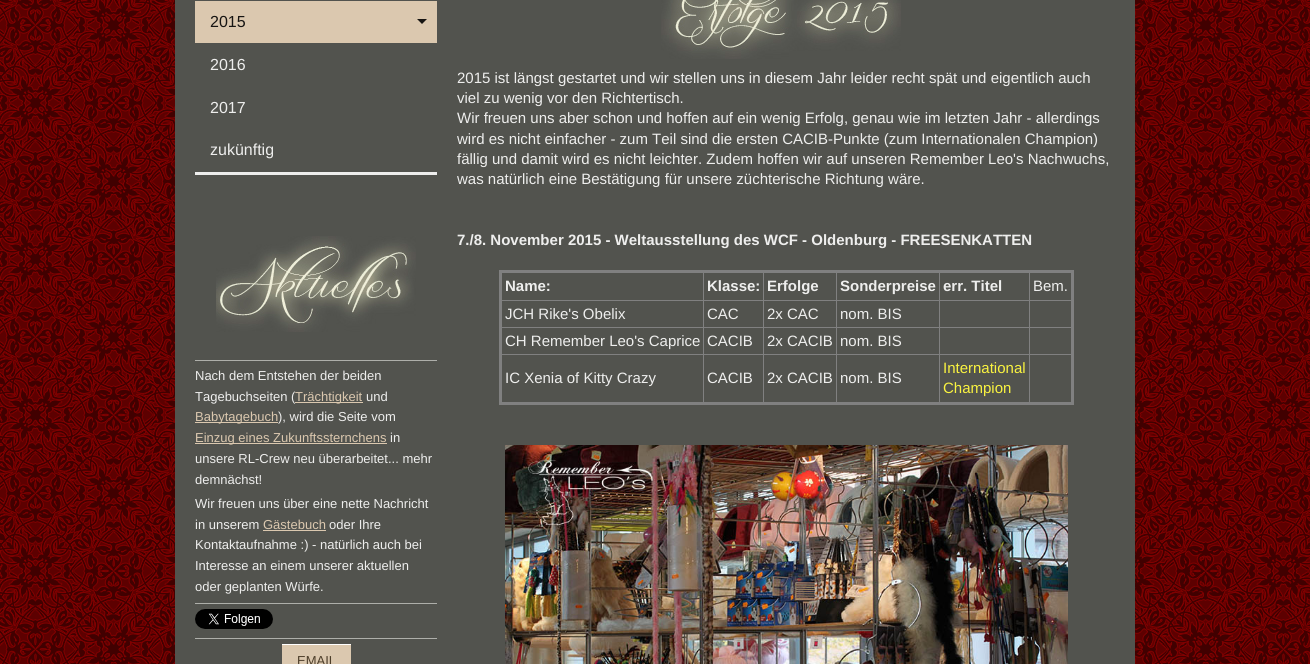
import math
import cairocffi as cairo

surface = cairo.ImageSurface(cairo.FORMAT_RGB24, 1310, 664)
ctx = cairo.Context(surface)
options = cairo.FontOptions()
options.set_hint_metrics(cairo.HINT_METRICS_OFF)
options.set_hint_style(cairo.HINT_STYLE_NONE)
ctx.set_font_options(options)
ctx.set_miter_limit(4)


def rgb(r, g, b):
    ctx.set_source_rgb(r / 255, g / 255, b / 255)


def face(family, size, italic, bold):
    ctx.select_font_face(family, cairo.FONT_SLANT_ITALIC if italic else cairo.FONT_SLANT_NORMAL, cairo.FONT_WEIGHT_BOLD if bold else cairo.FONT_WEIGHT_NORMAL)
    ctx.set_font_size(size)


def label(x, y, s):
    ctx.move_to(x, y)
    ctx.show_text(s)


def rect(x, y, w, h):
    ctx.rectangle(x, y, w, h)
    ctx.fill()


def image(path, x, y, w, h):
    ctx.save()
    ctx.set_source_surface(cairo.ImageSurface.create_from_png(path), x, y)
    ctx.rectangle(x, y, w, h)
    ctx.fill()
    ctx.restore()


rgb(255, 255, 255)
ctx.paint()
image('image0.png', 0, 0, 1310, 664)
rgb(82, 83, 78)
rect(175, 0, 960, 664)
rgb(238, 238, 237)
rect(195, 172, 242, 3)
rgb(219, 200, 175)
rect(195, 1, 242, 42)
face('Liberation Sans', 16, 0, 0)
rgb(22, 20, 18)
label(210, 27, '2015')
ctx.new_path()
ctx.move_to(417, 19)
ctx.line_to(427, 19)
ctx.line_to(422, 24)
ctx.close_path()
ctx.fill()
rgb(238, 238, 237)
label(210, 70, '2016')
label(210, 113, '2017')
label(210, 155, 'zukünftig')
image('image1.png', 216, 236, 200, 96)
rgb(174, 175, 170)
rect(195, 360, 242, 1)
face('Liberation Sans', 13, 0, 0)
rgb(238, 238, 237)
label(195, 380, 'Nach dem Entstehen der beiden')
label(195, 401, 'Tagebuchseiten (')
rgb(219, 200, 175)
rect(295, 402, 68, 1)
label(295, 401, 'Trächtigkeit')
rgb(238, 238, 237)
label(366, 401, 'und')
rgb(219, 200, 175)
rect(195, 422, 83, 1)
label(195, 421, 'Babytagebuch')
rgb(238, 238, 237)
label(278, 421, '), wird die Seite vom')
rgb(219, 200, 175)
rect(195, 443, 192, 1)
label(195, 442, 'Einzug eines Zukunftssternchens')
rgb(238, 238, 237)
label(390, 442, 'in')
label(195, 463, 'unsere RL-Crew neu überarbeitet... mehr')
label(195, 484, 'demnächst!')
label(195, 508, 'Wir freuen uns über eine nette Nachricht')
label(195, 529, 'in unserem')
rgb(219, 200, 175)
label(263, 529, 'Gästebuch')
rect(263, 530, 63, 1)
rgb(238, 238, 237)
label(329, 529, 'oder Ihre')
label(195, 549, 'Kontaktaufnahme :) - natürlich auch bei')
label(195, 570, 'Interesse an einem unserer aktuellen')
label(195, 591, 'oder geplanten Würfe.')
rgb(174, 175, 170)
rect(195, 603, 242, 1)
image('image2.png', 195, 609, 78, 20)
rect(195, 638, 242, 1)
rgb(219, 200, 175)
rect(282, 645, 69, 19)
rgb(255, 255, 255)
rect(282, 644, 69, 1)
rgb(77, 62, 42)
label(297, 665, 'EMAIL')
image('image3.png', 661, 0, 240, 59)
face('Liberation Sans', 15, 0, 0)
rgb(238, 238, 237)
label(457, 83, '2015 ist längst gestartet und wir stellen uns in diesem Jahr leider recht spät und eigentlich auch')
label(457, 103, 'viel zu wenig vor den Richtertisch.')
label(457, 123, 'Wir freuen uns aber schon und hoffen auf ein wenig Erfolg, genau wie im letzten Jahr - allerdings')
label(457, 144, 'wird es nicht einfacher - zum Teil sind die ersten CACIB-Punkte (zum Internationalen Champion)')
label(457, 164, 'fällig und damit wird es nicht leichter. Zudem hoffen wir auf unseren Remember Leo\'s Nachwuchs,')
label(457, 184, 'was natürlich eine Bestätigung für unsere züchterische Richtung wäre.')
face('Liberation Sans', 15, 0, 1)
label(457, 245, '7./8. November 2015 - Weltausstellung des WCF - Oldenburg - FREESENKATTEN')
rgb(128, 128, 128)
rect(1029, 300, 44, 1)
rect(1029, 327, 44, 1)
rect(1029, 354, 44, 1)
rect(1029, 354, 1, 50)
rect(939, 354, 91, 1)
rect(1029, 327, 1, 28)
rect(939, 327, 91, 1)
rect(1029, 300, 1, 28)
rect(939, 300, 91, 1)
rect(939, 354, 1, 50)
rect(836, 354, 104, 1)
rect(939, 327, 1, 28)
rect(836, 327, 104, 1)
rect(939, 300, 1, 28)
rect(836, 300, 104, 1)
rect(836, 354, 1, 50)
rect(763, 354, 74, 1)
rect(836, 327, 1, 28)
rect(763, 327, 74, 1)
rect(836, 300, 1, 28)
rect(763, 300, 74, 1)
rect(763, 354, 1, 50)
rect(703, 354, 61, 1)
rect(763, 327, 1, 28)
rect(703, 327, 61, 1)
rect(763, 300, 1, 28)
rect(703, 300, 61, 1)
rect(703, 354, 1, 50)
rect(500, 354, 204, 1)
rect(703, 327, 1, 28)
rect(500, 327, 204, 1)
rect(703, 300, 1, 28)
rect(500, 300, 204, 1)
rect(703, 271, 1, 30)
rect(763, 271, 1, 30)
rect(836, 271, 1, 30)
rect(939, 271, 1, 30)
rect(1029, 271, 1, 30)
rect(499, 270, 575, 3)
rect(1071, 270, 3, 135)
rect(499, 402, 575, 3)
rect(499, 270, 3, 135)
rgb(238, 238, 237)
label(505, 291, 'Name:')
label(707, 291, 'Klasse:')
label(767, 291, 'Erfolge')
label(840, 291, 'Sonderpreise')
label(943, 291, 'err. Titel')
face('Liberation Sans', 15, 0, 0)
label(1033, 291, 'Bem.')
label(505, 319, 'JCH Rike\'s Obelix')
label(707, 319, 'CAC')
label(767, 319, '2x CAC')
label(840, 319, 'nom. BIS')
label(505, 346, 'CH Remember Leo\'s Caprice')
label(707, 346, 'CACIB')
label(767, 346, '2x CACIB')
label(840, 346, 'nom. BIS')
label(505, 383, 'IC Xenia of Kitty Crazy')
label(707, 383, 'CACIB')
label(767, 383, '2x CACIB')
label(840, 383, 'nom. BIS')
rgb(250, 243, 64)
label(943, 373, 'International')
label(943, 393, 'Champion')
image('image4.png', 505, 445, 563, 219)
surface.write_to_png('render.png')
